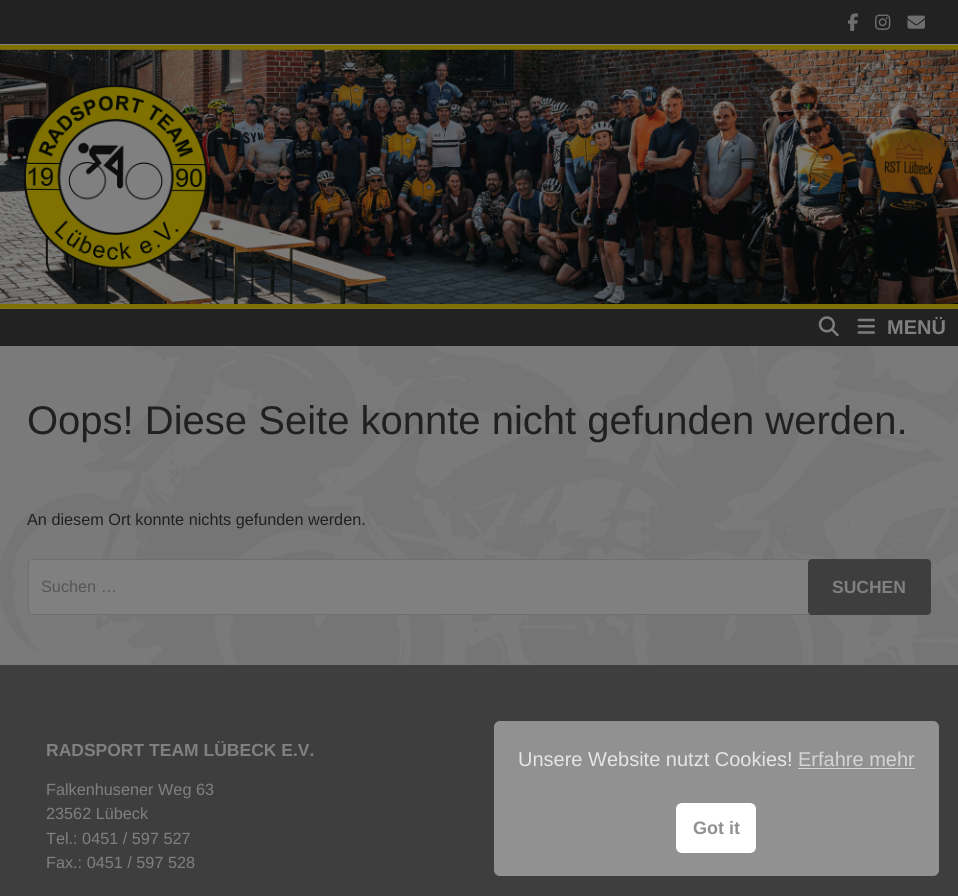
import math
import cairocffi as cairo

surface = cairo.ImageSurface(cairo.FORMAT_RGB24, 958, 896)
ctx = cairo.Context(surface)
options = cairo.FontOptions()
options.set_hint_metrics(cairo.HINT_METRICS_OFF)
options.set_hint_style(cairo.HINT_STYLE_NONE)
ctx.set_font_options(options)
ctx.set_miter_limit(4)


def rgb(r, g, b):
    ctx.set_source_rgb(r / 255, g / 255, b / 255)


def face(family, size, italic, bold):
    ctx.select_font_face(family, cairo.FONT_SLANT_ITALIC if italic else cairo.FONT_SLANT_NORMAL, cairo.FONT_WEIGHT_BOLD if bold else cairo.FONT_WEIGHT_NORMAL)
    ctx.set_font_size(size)


def label(x, y, s):
    ctx.move_to(x, y)
    ctx.show_text(s)


def rect(x, y, w, h):
    ctx.rectangle(x, y, w, h)
    ctx.fill()


def rrect(x, y, w, h, r):
    ctx.new_sub_path()
    for i, (u, v) in enumerate([(x + w - r, y + h - r), (x + r, y + h - r), (x + r, y + r), (x + w - r, y + r)]):
        ctx.arc(u, v, r, i * math.pi / 2, (i + 1) * math.pi / 2)
    ctx.close_path()


def image(path, x, y, w, h):
    ctx.save()
    ctx.set_source_surface(cairo.ImageSurface.create_from_png(path), x, y)
    ctx.rectangle(x, y, w, h)
    ctx.fill()
    ctx.restore()


rgb(255, 255, 255)
ctx.paint()
image('image0.png', 0, 308, 958, 357)
rgb(34, 34, 34)
rect(0, 0, 958, 44)
rgb(128, 128, 128)
rect(0, 44, 958, 1)
image('image1.png', 848, 13, 10, 18)
image('image2.png', 875, 14, 16, 16)
image('image3.png', 907, 15, 18, 14)
image('image4.png', 0, 45, 958, 264)
rgb(34, 34, 34)
rect(0, 309, 958, 37)
image('image5.png', 818, 316, 21, 21)
image('image6.png', 857, 318, 18, 16)
face('Liberation Sans', 20, 0, 1)
rgb(128, 128, 128)
label(887, 334, 'MENÜ')
ctx.set_source_rgba(0.467, 0.467, 0.467, 0.63)
rect(0, 346, 958, 319)
face('Liberation Sans', 40, 0, 0)
rgb(32, 32, 32)
label(27, 434, 'Oops! Diese Seite konnte nicht gefunden werden.')
face('Liberation Sans', 16.25, 0, 0)
label(27, 525, 'An diesem Ort konnte nichts gefunden werden.')
rgb(128, 128, 128)
rrect(28.5, 559.5, 902, 55, 3.5)
ctx.fill_preserve()
rgb(111, 111, 111)
ctx.set_line_width(1)
ctx.stroke()
rgb(85, 85, 85)
label(41, 592, 'Suchen …')
rgb(62, 62, 62)
rrect(808, 559, 123, 56, 4)
ctx.fill()
face('Liberation Sans', 17.5, 0, 1)
rgb(128, 128, 128)
label(832, 593, 'SUCHEN')
rgb(62, 62, 62)
rect(0, 665, 958, 231)
rgb(128, 128, 128)
label(46, 756, 'RADSPORT TEAM LÜBECK E.V.')
face('Liberation Sans', 16.25, 0, 0)
label(46, 795, 'Falkenhusener Weg 63')
label(46, 819, '23562 Lübeck')
label(46, 844, 'Tel.: 0451 / 597 527')
label(46, 868, 'Fax.: 0451 / 597 528')
rgb(145, 145, 145)
rrect(494, 721, 445, 155, 6)
ctx.fill()
face('Liberation Sans', 20, 0, 0)
rgb(229, 229, 229)
label(518, 766, 'Unsere Website nutzt Cookies!')
rgb(212, 212, 212)
label(798, 766, 'Erfahre mehr')
rect(798, 768, 117, 1)
rgb(255, 255, 255)
rrect(676, 803, 80, 50, 6)
ctx.fill()
face('Liberation Sans', 18, 0, 1)
rgb(145, 145, 145)
label(693, 834, 'Got it')
surface.write_to_png('render.png')
